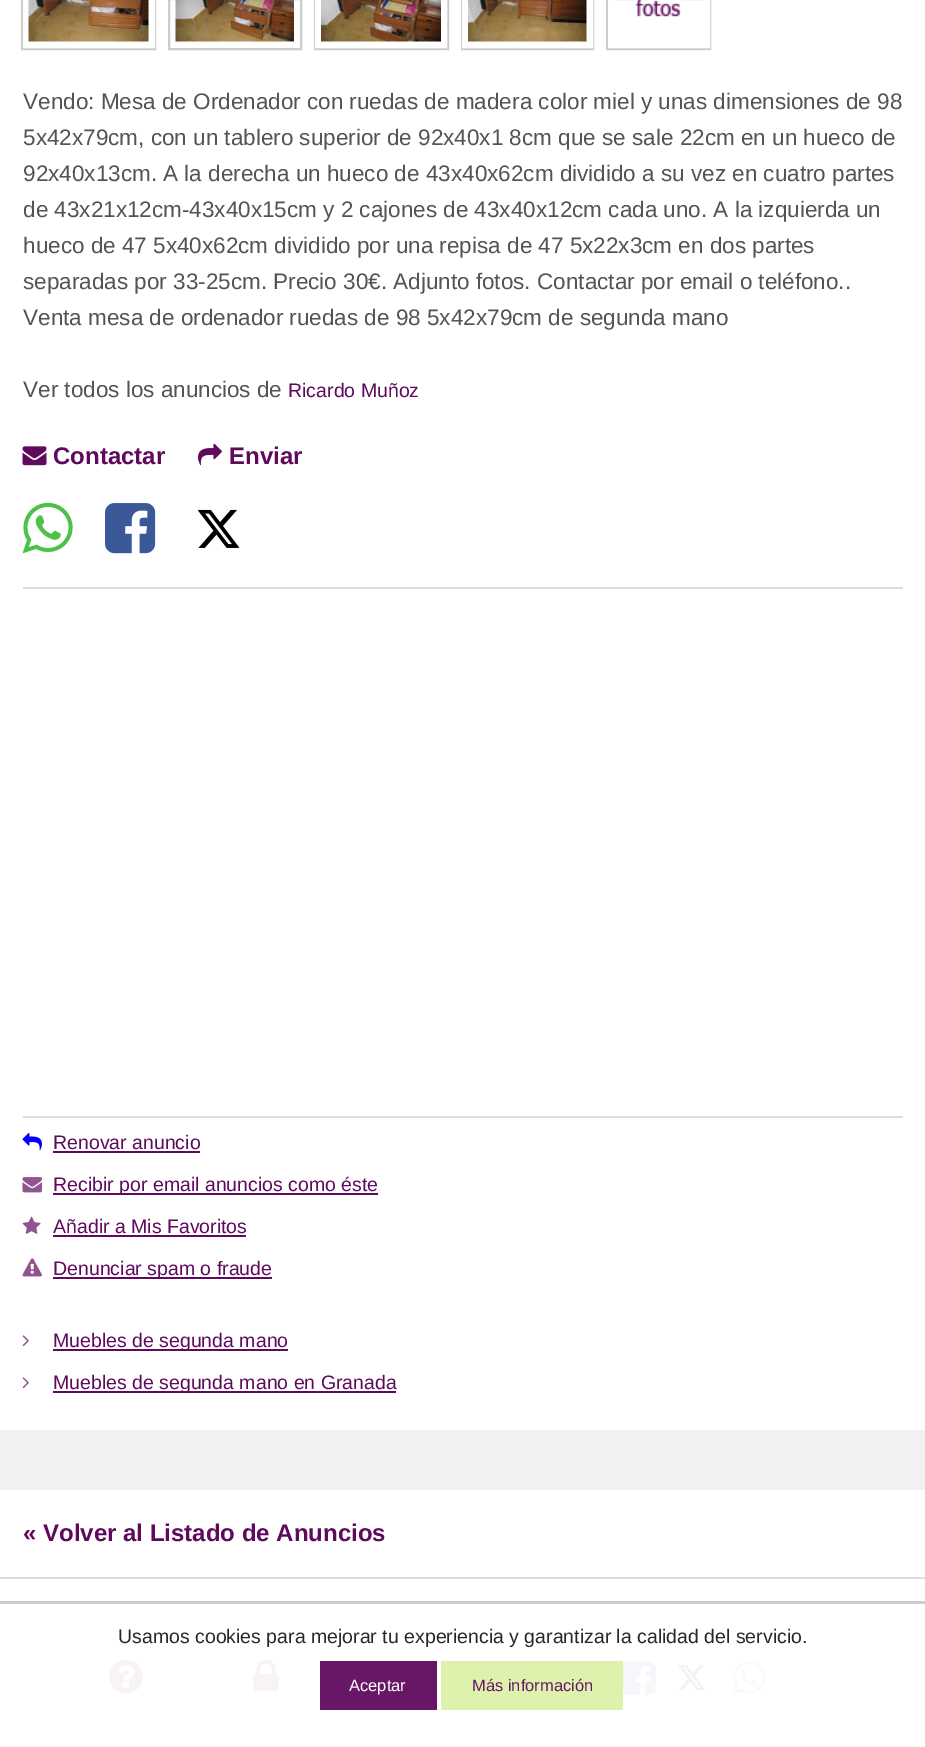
%!PS
<< /PageSize [925 1747] /PageUsesTransparency true >> setpagedevice
/rgb { 3 { 255 div 3 1 roll } repeat setrgbcolor } def
/font { [ exch dup neg 0 0 3 -1 roll 0 0 ] selectfont } def
/alpha { dup .setfillconstantalpha .setstrokeconstantalpha } def
/picture { 5 dict begin { /h /w /y /x /name } { exch def } forall
  gsave x y translate w h scale
  w h 8 [w 0 0 h 0 0] name (r) file false 3 colorimage grestore end } def
0 .pushpdf14devicefilter
0 1747 translate 1 -1 scale
4 setmiterlimit
255 255 255 rgb
0 0 925 1747 rectfill
204 204 204 rgb
2 setlinewidth
22 -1 133 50 rectstroke
255 255 255 rgb
6 setlinewidth
26 -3 126 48 rectstroke
(img/1.rgb) 28 0 121 42 picture
204 204 204 rgb
2 setlinewidth
169 -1 132 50 rectstroke
(img/2.rgb) 175 0 119 42 picture
315 -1 133 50 rectstroke
255 255 255 rgb
6 setlinewidth
318 -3 126 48 rectstroke
(img/3.rgb) 321 0 120 42 picture
204 204 204 rgb
2 setlinewidth
462 -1 131 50 rectstroke
255 255 255 rgb
6 setlinewidth
465 -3 125 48 rectstroke
(img/4.rgb) 468 0 119 42 picture
204 204 204 rgb
2 setlinewidth
607 -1 103 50 rectstroke
255 255 255 rgb
6 setlinewidth
611 -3 96 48 rectstroke
(img/5.rgb) 635 0 47 17 picture
(img/6.rgb) 22 446 25 20 picture
(img/7.rgb) 198 443 24 23 picture
(img/8.rgb) 22 502 51 52 picture
(img/9.rgb) 105 503 51 51 picture
(img/10.rgb) 198 509 41 39 picture
221 221 221 rgb
23 587 880 2 rectfill
23 1116 880 2 rectfill
(img/11.rgb) 22 1133 20 18 picture
96 10 94 rgb
53 1151 147 2 rectfill
(img/12.rgb) 22 1177 20 16 picture
53 1193 325 2 rectfill
(img/13.rgb) 22 1216 19 18 picture
53 1235 193 2 rectfill
(img/14.rgb) 22 1258 20 19 picture
53 1277 219 2 rectfill
(img/15.rgb) 22 1335 7 12 picture
53 1349 235 2 rectfill
(img/15.rgb) 22 1377 7 12 picture
[
  [53 1391 343 2 96 10 94]
  [0 1430 925 60 242 242 242]
  [0 1577 925 2 221 221 221]
] { aload pop rgb rectfill } forall
(img/16.rgb) 109 1659 34 35 picture
(img/17.rgb) 253 1659 26 32 picture
(img/18.rgb) 622 1661 34 34 picture
(img/19.rgb) 678 1664 27 27 picture
(img/20.rgb) 732 1661 34 34 picture
[
  [0 1601 925 1 201 201 201]
  [0 1602 925 2 207 207 207]
] { aload pop rgb rectfill } forall
0.95 alpha
[
  [320 1661 117 49 96 10 94]
] { aload pop rgb rectfill } forall
0.66 alpha
[
  [441 1661 182 49 205 236 132]
] { aload pop rgb rectfill } forall
/LiberationSans-Regular 22.5 font
1 alpha
84 84 84 rgb
[
  [(Vendo: Mesa de Ordenador con ruedas de madera color miel y unas dimensiones de 98) 23 109]
  [(5x42x79cm, con un tablero superior de 92x40x1 8cm que se sale 22cm en un hueco de) 23 145]
  [(92x40x13cm. A la derecha un hueco de 43x40x62cm dividido a su vez en cuatro partes) 23 181]
  [(de 43x21x12cm-43x40x15cm y 2 cajones de 43x40x12cm cada uno. A la izquierda un) 23 217]
  [(hueco de 47 5x40x62cm dividido por una repisa de 47 5x22x3cm en dos partes) 23 253]
  [(separadas por 33-25cm. Precio 30€. Adjunto fotos. Contactar por email o teléfono..) 23 289]
  [(Venta mesa de ordenador ruedas de 98 5x42x79cm de segunda mano) 23 325]
  [(Ver todos los anuncios de) 23 397]
] { aload pop moveto show } forall
/LiberationSans-Regular 19.5 font
96 10 94 rgb
288 397 moveto (Ricardo Muñoz) show
/LiberationSans-Bold 24 font
53 464 moveto (Contactar) show
229 464 moveto (Enviar) show
/LiberationSans-Regular 19.5 font
[
  [(Renovar anuncio) 53 1149]
  [(Recibir por email anuncios como éste) 53 1191]
  [(Añadir a Mis Favoritos) 53 1233]
  [(Denunciar spam o fraude) 53 1275]
  [(Muebles de segunda mano) 53 1347]
  [(Muebles de segunda mano en Granada) 53 1389]
] { aload pop moveto show } forall
/LiberationSans-Bold 24 font
23 1541 moveto (« Volver al Listado de Anuncios) show
/LiberationSans-Regular 19.5 font
40 40 40 rgb
118 1643 moveto (Usamos cookies para mejorar tu experiencia y garantizar la calidad del servicio.) show
/LiberationSans-Regular 16.5 font
255 255 255 rgb
349 1691 moveto (Aceptar) show
104 22 102 rgb
472 1691 moveto (Más información) show
.poppdf14devicefilter showpage
